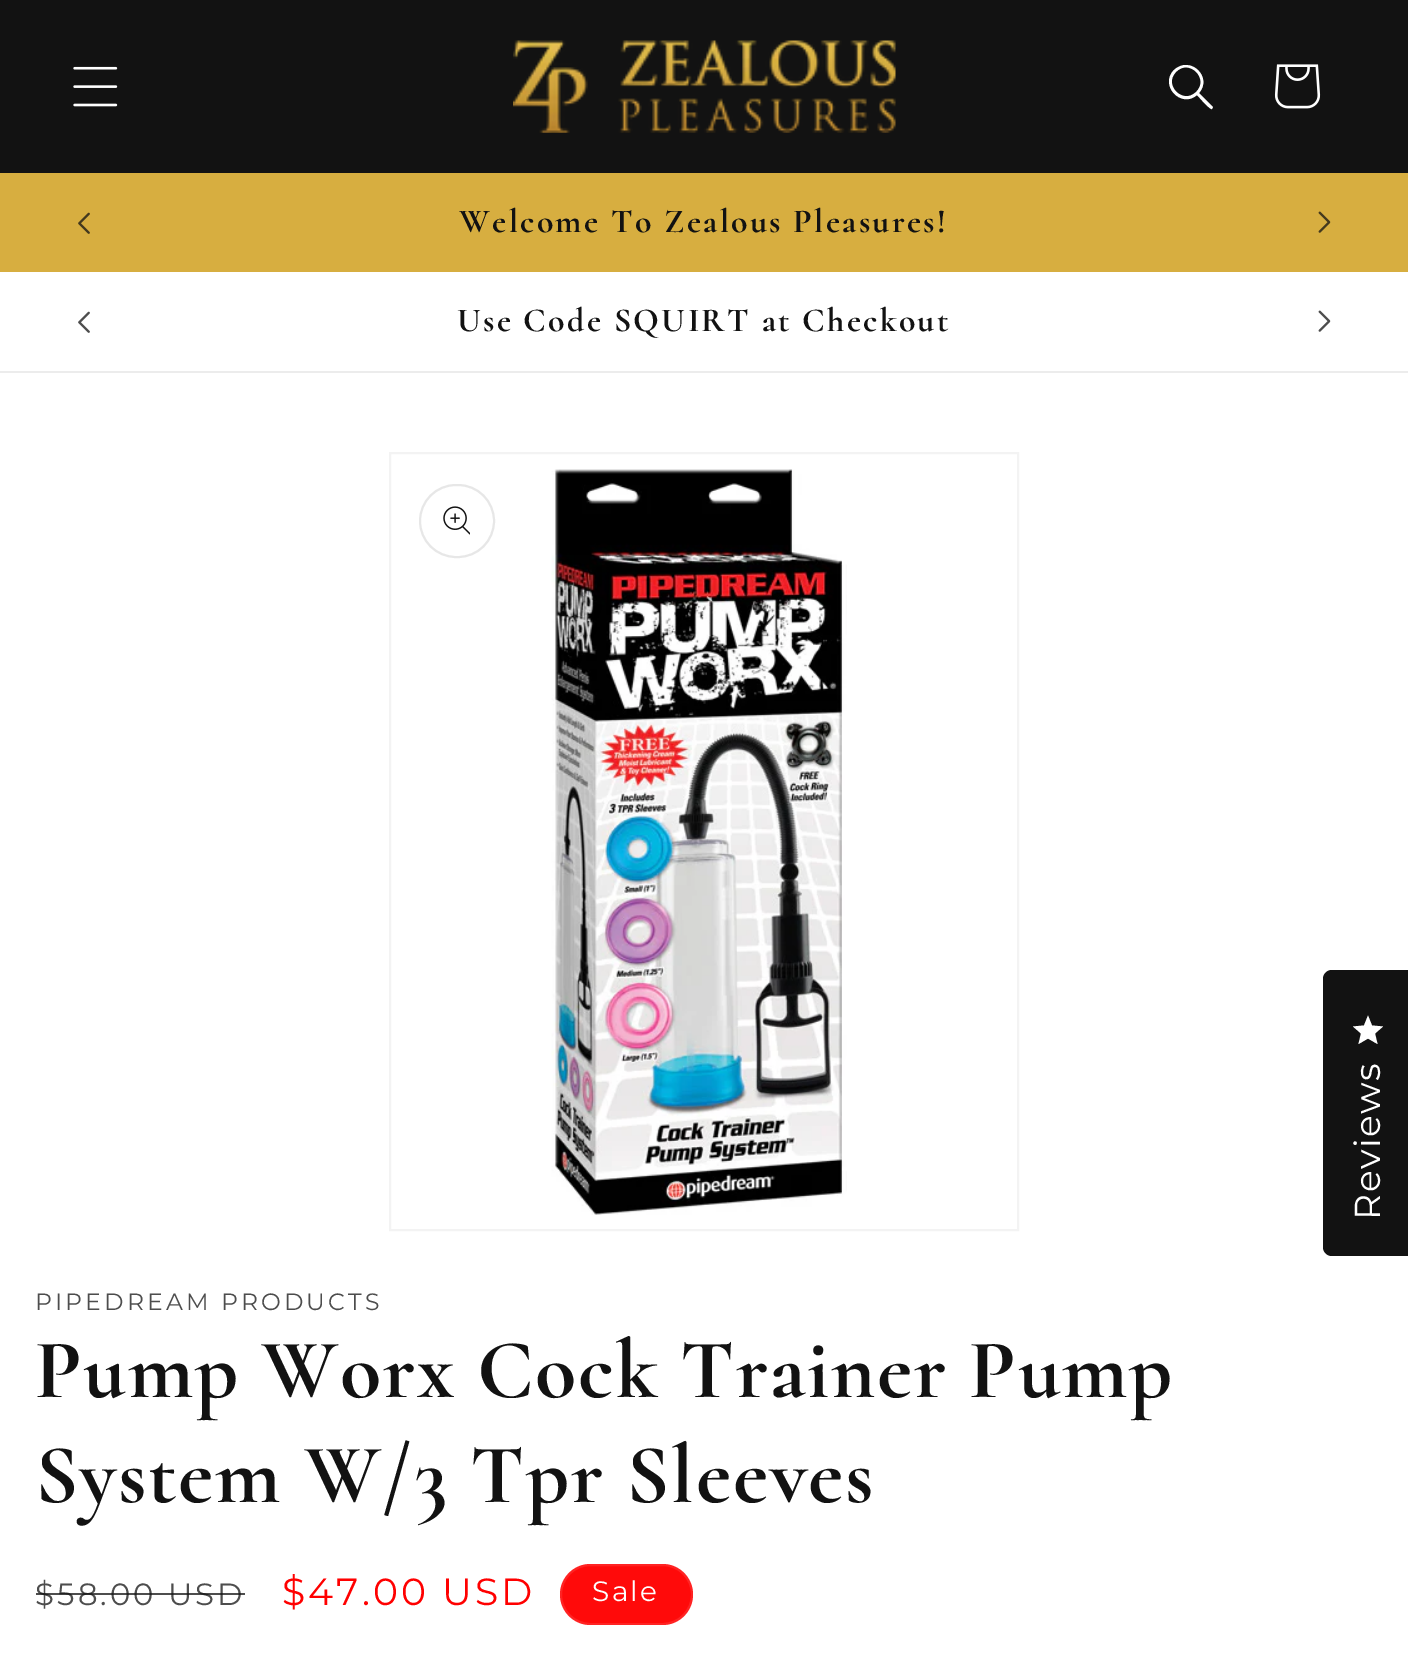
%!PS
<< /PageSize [1408 1673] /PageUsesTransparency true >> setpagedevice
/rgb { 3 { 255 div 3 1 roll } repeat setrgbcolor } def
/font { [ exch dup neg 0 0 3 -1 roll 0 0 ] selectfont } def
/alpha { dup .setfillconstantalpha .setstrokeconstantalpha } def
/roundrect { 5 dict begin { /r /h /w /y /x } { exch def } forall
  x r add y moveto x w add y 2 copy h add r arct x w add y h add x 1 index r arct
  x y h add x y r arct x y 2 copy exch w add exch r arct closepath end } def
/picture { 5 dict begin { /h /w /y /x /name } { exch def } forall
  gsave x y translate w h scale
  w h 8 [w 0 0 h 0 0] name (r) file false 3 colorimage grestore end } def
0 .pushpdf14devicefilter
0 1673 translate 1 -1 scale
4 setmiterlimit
255 255 255 rgb
0 0 1408 1673 rectfill
18 18 18 rgb
0 0 1408 173 rectfill
(img/1.rgb) 73 66 45 41 picture
(img/2.rgb) 513 40 383 93 picture
255 255 255 rgb
1196 92 moveto 1183 105 1163 85 1176 72 curveto 1189 58 1210 79 1196 92 curveto closepath 1197 95 moveto 1181 109 1159 85 1174 70 curveto 1190 55 1213 77 1199 93 curveto 1213 107 lineto 1212 109 lineto 1210 110 1199 97 1197 95 curveto closepath eofill
(img/3.rgb) 1274 64 47 45 picture
215 174 64 rgb
0 173 1408 99 rectfill
(img/4.rgb) 78 212 12 22 picture
(img/5.rgb) 1318 211 13 22 picture
236 236 236 rgb
0 371 1408 2 rectfill
(img/6.rgb) 78 311 12 22 picture
(img/7.rgb) 1318 310 13 22 picture
18 18 18 rgb
1332 970 moveto 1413 970 lineto 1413 1256 lineto 1332 1256 lineto 1327 1256 1323 1252 1323 1247 curveto 1323 979 lineto 1323 974 1327 970 1332 970 curveto closepath fill
255 255 255 rgb
1368 1038.5 moveto 1377.5 1044 lineto 1375 1033.5 lineto 1383 1026.5 lineto 1372 1025.5 lineto 1368 1015.5 lineto 1364 1025.5 lineto 1353 1026.5 lineto 1361 1033.5 lineto 1358.5 1044 lineto closepath fill
243 243 243 rgb
2 setlinewidth
390 453 628 777 rectstroke
231 231 231 rgb
420 485 74 72 36 roundrect stroke
(img/8.rgb) 443 506 27 29 picture
(img/9.rgb) 551 469 296 746 picture
255 10 10 rgb
560 1564 133 61 30.5 roundrect fill
0.1 alpha
255 255 255 rgb
561 1565 131 59 29.5 roundrect stroke
/Cormorant-Bold 33.75 font
1 alpha
18 18 18 rgb
459 232 moveto 2.35 0 (Welcome To Zealous Pleasures!) ashow
457 331 moveto 2.35 0 (Use Code SQUIRT at Checkout) ashow
/Montserrat-Regular 36 font
255 255 255 rgb
gsave 1380 1220 translate -89.9 rotate 0 0 moveto 1.5 0 (Reviews) ashow grestore
/Montserrat-Regular 23.6 font
77 77 77 rgb
35 1310 moveto 3.1 0 (PIPEDREAM PRODUCTS) ashow
/Cormorant-Bold 84.4 font
18 18 18 rgb
35 1397 moveto 1.7 0 (Pump Worx Cock Trainer Pump) ashow
35 1502 moveto 1.7 0 (System W/3 Tpr Sleeves) ashow
/Montserrat-Regular 30.75 font
77 77 77 rgb
35 1605 moveto 3.1 0 ($58.00 USD) ashow
0.75 alpha
18 18 18 rgb
36 1593 209 2 rectfill
/Montserrat-Regular 37.75 font
1 alpha
255 0 0 rgb
282 1605 moveto 3.1 0 ($47.00 USD) ashow
/Montserrat-Regular 28 font
255 255 255 rgb
592 1601 moveto 2.35 0 (Sale) ashow
.poppdf14devicefilter showpage
